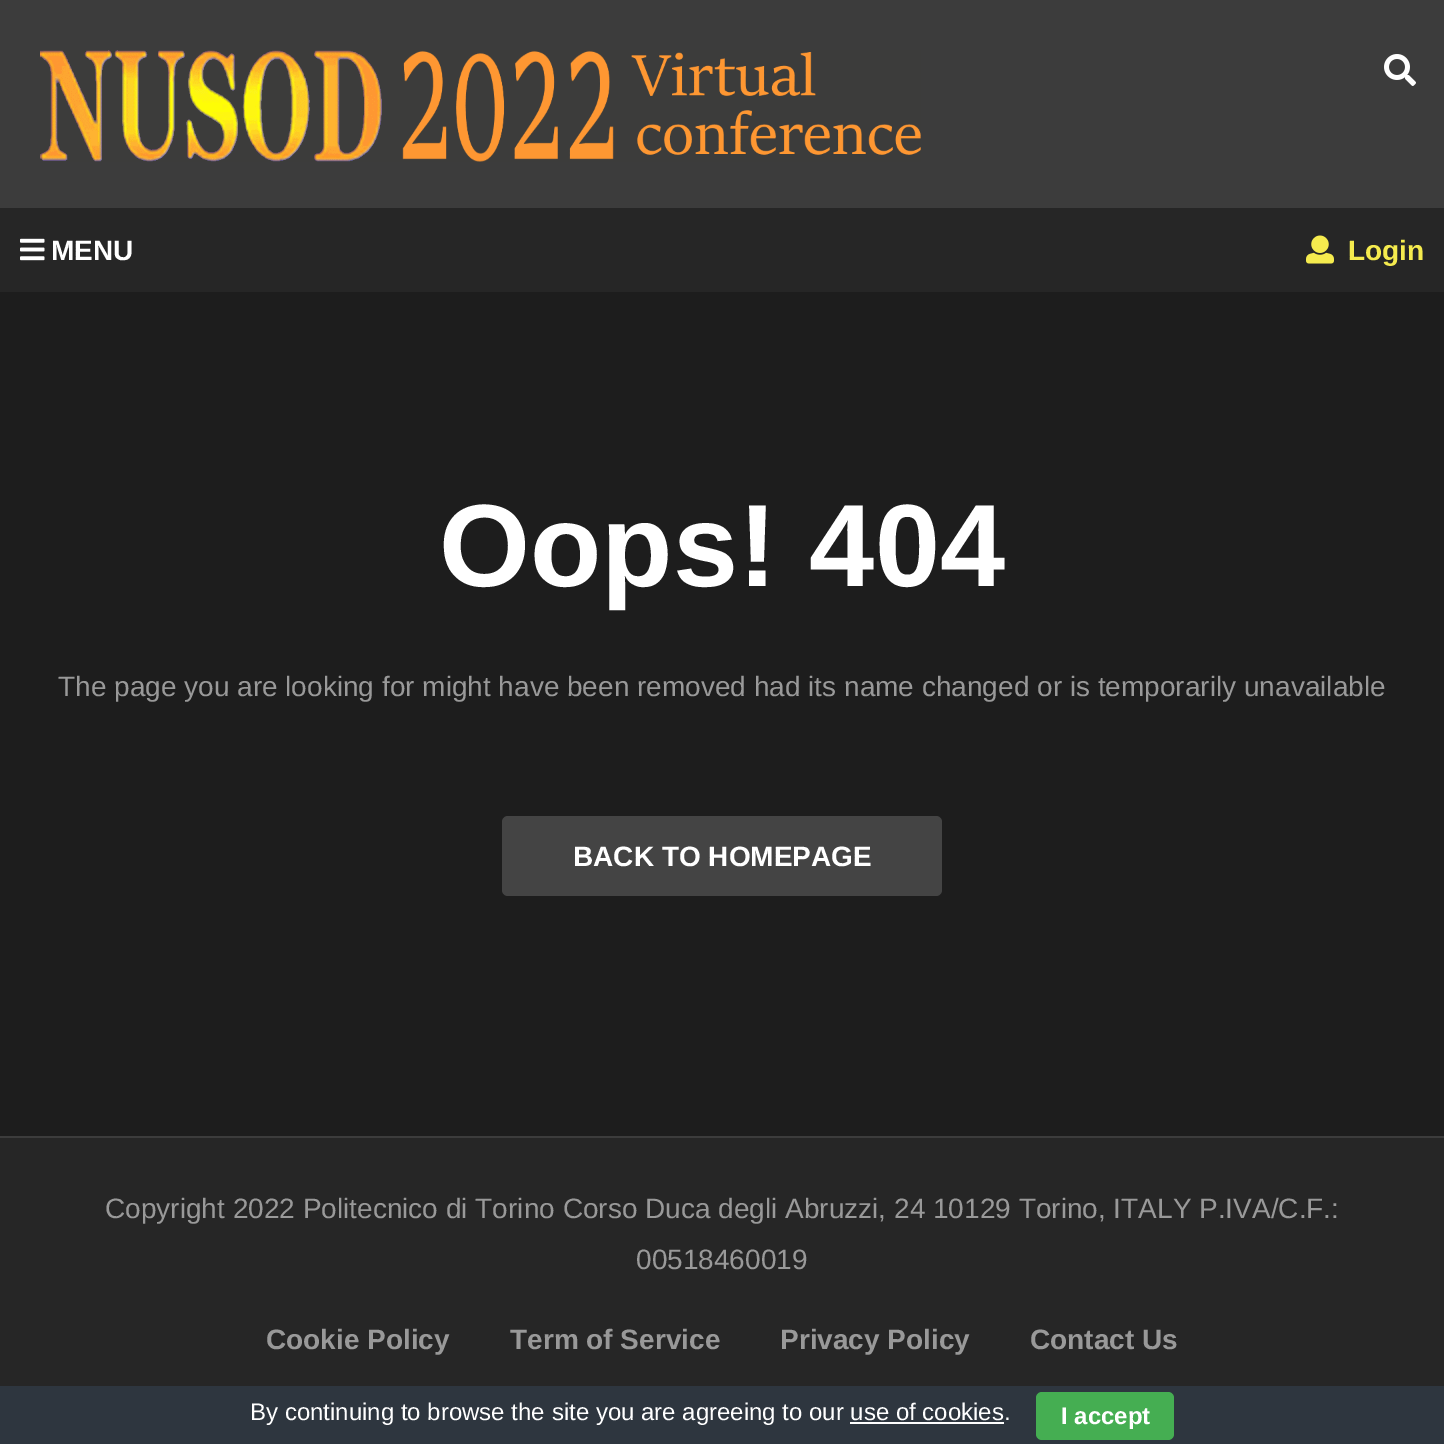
%!PS
<< /PageSize [1444 1444] >> setpagedevice
/rgb { 3 { 255 div 3 1 roll } repeat setrgbcolor } def
/font { [ exch dup neg 0 0 3 -1 roll 0 0 ] selectfont } def
/roundrect { 5 dict begin { /r /h /w /y /x } { exch def } forall
  x r add y moveto x w add y 2 copy h add r arct x w add y h add x 1 index r arct
  x y h add x y r arct x y 2 copy exch w add exch r arct closepath end } def
/picture { 5 dict begin { /h /w /y /x /name } { exch def } forall
  gsave x y translate w h scale
  w h 8 [w 0 0 h 0 0] name (r) file false 3 colorimage grestore end } def
0 1444 translate 1 -1 scale
4 setmiterlimit
29 29 29 rgb
0 0 1444 1444 rectfill
60 60 60 rgb
0 0 1444 208 rectfill
(img/1.rgb) 40 50 881 112 picture
(img/2.rgb) 1384 54 32 32 picture
38 38 38 rgb
0 208 1444 84 rectfill
(img/3.rgb) 20 238 25 23 picture
(img/4.rgb) 1306 235 28 29 picture
68 68 68 rgb
502 816 440 80 6 roundrect fill
[
  [0 1138 1444 248 38 38 38]
  [0 1136 1444 2 60 60 60]
  [0 1386 1444 58 46 54 63]
] { aload pop rgb rectfill } forall
69 174 82 rgb
1036 1392 138 48 6 roundrect fill
255 255 255 rgb
850 1422 154 2 rectfill
/LiberationSans-Bold 28 font
51 260 moveto (MENU) show
245 235 78 rgb
1348 260 moveto (Login) show
/LiberationSans-Bold 117 font
255 255 255 rgb
439 586 moveto (Oops! 404) show
/LiberationSans-Regular 28 font
153 153 153 rgb
58 696 moveto (The page you are looking for might have been removed had its name changed or is temporarily unavailable) show
/LiberationSans-Bold 28 font
255 255 255 rgb
573 866 moveto (BACK TO HOMEPAGE) show
/LiberationSans-Regular 28 font
153 153 153 rgb
105 1218 moveto (Copyright 2022 Politecnico di Torino Corso Duca degli Abruzzi, 24 10129 Torino, ITALY P.IVA/C.F.:) show
636 1269 moveto (00518460019) show
/LiberationSans-Bold 28 font
[
  [(Cookie Policy) 266 1349]
  [(Term of Service) 510 1349]
  [(Privacy Policy) 780 1349]
  [(Contact Us) 1030 1349]
] { aload pop moveto show } forall
/LiberationSans-Regular 24 font
255 255 255 rgb
250 1420 moveto (By continuing to browse the site you are agreeing to our use of cookies.) show
/LiberationSans-Bold 24 font
1061 1424 moveto (I accept) show
showpage
